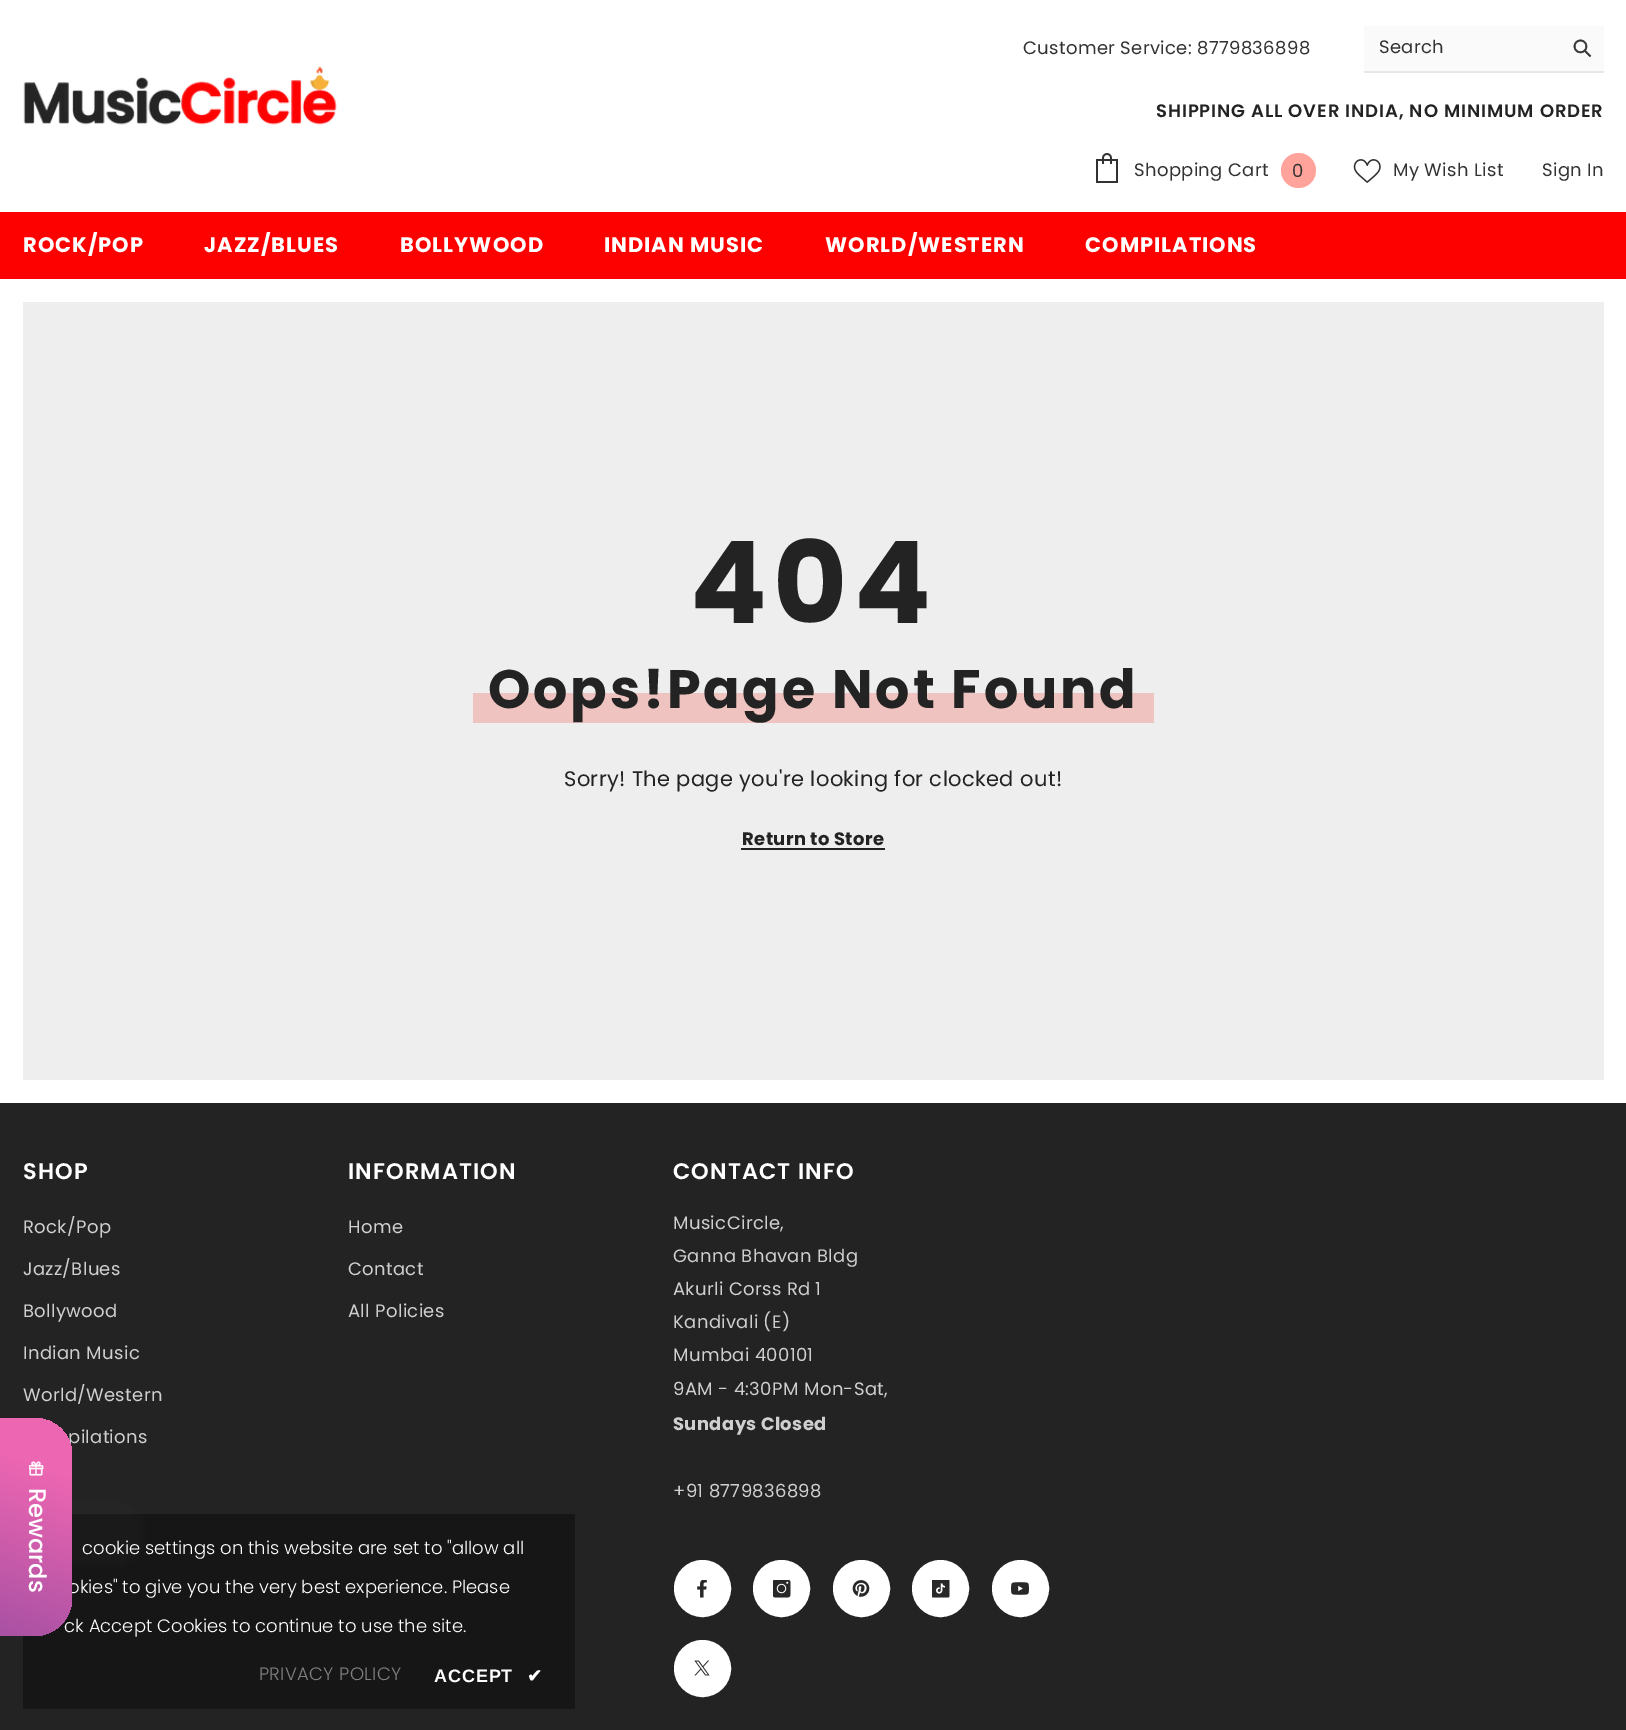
%!PS
<< /PageSize [1626 1730] /PageUsesTransparency true >> setpagedevice
/rgb { 3 { 255 div 3 1 roll } repeat setrgbcolor } def
/font { [ exch dup neg 0 0 3 -1 roll 0 0 ] selectfont } def
/alpha { dup .setfillconstantalpha .setstrokeconstantalpha } def
/circle { newpath 0 360 arc closepath } def
/roundrect { 5 dict begin { /r /h /w /y /x } { exch def } forall
  x r add y moveto x w add y 2 copy h add r arct x w add y h add x 1 index r arct
  x y h add x y r arct x y 2 copy exch w add exch r arct closepath end } def
/shadow { 12 dict begin { /a /b /q /h /w /y /x } { exch def } forall gsave /was 0 def
  9 -2 -9 { dup b mul 4 div /e exch def 1 sub .425 mul 2.718 exch exp 1 add a .99 .min exch div /now exch def
    1 1 now sub 1 was sub div sub alpha /was now def
    w h .min e 2 mul add 0 gt { x e sub y e sub w e 2 mul add h e 2 mul add
      q e add b .6 mul add w h .min 2 div e add .min 0 .max roundrect fill } if } for grestore end } def
/picture { 5 dict begin { /h /w /y /x /name } { exch def } forall
  gsave x y translate w h scale
  w h 8 [w 0 0 h 0 0] name (r) file false 3 colorimage grestore end } def
0 .pushpdf14devicefilter
0 1730 translate 1 -1 scale
4 setmiterlimit
255 255 255 rgb
0 0 1626 1730 rectfill
250 250 250 rgb
1364 26 240 45 rectfill
231 231 231 rgb
1364 71 240 2 rectfill
(img/1.rgb) 1573 39 19 19 picture
(img/2.rgb) 23 66 314 59 picture
(img/3.rgb) 1096 153 22 30 picture
255 163 155 rgb
1298.5 170.5 17.5 circle fill
(img/4.rgb) 1353 159 28 24 picture
[
  [0 212 1626 67 253 1 1]
  [23 302 1581 778 238 238 238]
  [473 693 681 30 239 195 192]
  [741 848 144 2 35 35 35]
  [0 1103 1626 627 35 35 35]
] { aload pop rgb rectfill } forall
255 255 255 rgb
702.5 1588.5 27.5 circle gsave fill grestore
2 setlinewidth
stroke
(img/5.rgb) 697 1580 10 18 picture
781.5 1588.5 27.5 circle gsave fill grestore
stroke
(img/6.rgb) 773 1580 18 18 picture
861.5 1588.5 27.5 circle gsave fill grestore
stroke
(img/7.rgb) 852 1580 18 17 picture
940.5 1588.5 27.5 circle gsave fill grestore
stroke
(img/8.rgb) 932 1580 18 18 picture
1020.5 1588.5 27.5 circle gsave fill grestore
stroke
(img/9.rgb) 1011 1582 18 13 picture
702.5 1668.5 27.5 circle gsave fill grestore
stroke
(img/10.rgb) 694 1660 16 16 picture
22 22 22 rgb
23 1514 552 195 rectfill
68 68 68 rgb
-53 1500 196 66 35 6 0.08 shadow
/Poppins-Regular 18 font
50 50 50 rgb
1023 54 moveto 0.35 0 (Customer Service: 8779836898) ashow
1379 53 moveto 0.35 0 (Search) ashow
/Poppins-SemiBold 18 font
35 35 35 rgb
1156 117 moveto 0.9 0 (SHIPPING ALL OVER INDIA, NO MINIMUM ORDER) ashow
/Poppins-Regular 18 font
50 50 50 rgb
1134 176 moveto 0.35 0 (Shopping Cart) ashow
1292 177 moveto (0) show
1393 176 moveto 0.35 0 (My Wish List) ashow
1542 176 moveto 0.35 0 (Sign In) ashow
/Poppins-Bold 21 font
255 255 255 rgb
23 252 moveto 1 0 (ROCK/POP) ashow
204 252 moveto 1 0 (JAZZ/BLUES) ashow
400 252 moveto 1 0 (BOLLYWOOD) ashow
604 252 moveto 1 0 (INDIAN MUSIC) ashow
825 252 moveto 1 0 (WORLD/WESTERN) ashow
1085 252 moveto 1 0 (COMPILATIONS) ashow
/Poppins-Bold 114 font
35 35 35 rgb
690 623 moveto 6 0 (404) ashow
/Poppins-Bold 54 font
488 708 moveto 2.75 0 (Oops!Page Not Found) ashow
/Poppins-Regular 21 font
564 786 moveto 0.35 0 (Sorry! The page you're looking for clocked out!) ashow
/Poppins-Bold 18 font
742 845 moveto 0.35 0 (Return to Store) ashow
/Poppins-SemiBold 22.5 font
255 255 255 rgb
23 1179 moveto 1.1 0 (SHOP) ashow
/Poppins-Regular 18 font
207 207 207 rgb
23 1233 moveto 0.35 0 (Rock/Pop) ashow
23 1275 moveto 0.35 0 (Jazz/Blues) ashow
23 1317 moveto 0.35 0 (Bollywood) ashow
23 1359 moveto 0.35 0 (Indian Music) ashow
23 1401 moveto 0.35 0 (World/Western) ashow
68 1443 moveto 0.35 0 (pilations) ashow
/Poppins-SemiBold 22.5 font
255 255 255 rgb
348 1179 moveto 1.1 0 (INFORMATION) ashow
/Poppins-Regular 18 font
207 207 207 rgb
348 1233 moveto 0.35 0 (Home) ashow
348 1275 moveto 0.35 0 (Contact) ashow
348 1317 moveto 0.35 0 (All Policies) ashow
/Poppins-SemiBold 22.5 font
255 255 255 rgb
673 1179 moveto 1.1 0 (CONTACT INFO) ashow
/Poppins-Regular 18 font
207 207 207 rgb
673 1229 moveto 0.35 0 (MusicCircle,) ashow
673 1262 moveto 0.35 0 (Ganna Bhavan Bldg) ashow
673 1295 moveto 0.35 0 (Akurli Corss Rd 1) ashow
673 1328 moveto 0.35 0 (Kandivali \(E\)) ashow
673 1361 moveto 0.35 0 (Mumbai 400101) ashow
673 1395 moveto 0.35 0 (9AM - 4:30PM Mon-Sat,) ashow
/Poppins-Bold 18 font
673 1430 moveto 0.35 0 (Sundays Closed) ashow
/Poppins-Regular 18 font
673 1497 moveto 0.35 0 (+91 8779836898) ashow
/Poppins-Light 18 font
255 255 255 rgb
[
  [(cookie settings on this website are set to "allow all) 82 1554]
  [(okies" to give you the very best experience. Please) 68 1593]
  [(ck Accept Cookies to continue to use the site.) 64 1632]
] { aload pop moveto show } forall
gsave 72 1455 moveto 72 1598 lineto 72 1619 55 1636 34 1636 curveto 0 1636 lineto 0 1418 lineto 34 1418 lineto 55 1418 72 1434 72 1455 curveto closepath clip newpath
<< /ShadingType 2 /ColorSpace /DeviceRGB /Coords [74 1418 -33 1722] /Extend [true true] /Function << /FunctionType 3 /Domain [0 1] /Functions [<< /FunctionType 2 /Domain [0 1] /C0 [0.929 0.4 0.698] /C1 [0.929 0.4 0.698] /N 1 >> << /FunctionType 2 /Domain [0 1] /C0 [0.929 0.4 0.698] /C1 [0.525 0.275 0.612] /N 1 >>] /Bounds [0.17] /Encode [0 1 0 1] >> >> shfill grestore
(img/11.rgb) 29 1461 15 15 picture
/Poppins-Medium 24 font
gsave 29 1488 translate 90 rotate 0 0 moveto (Rewards) show grestore
/Poppins-Light 18 font
129 129 129 rgb
259 1680 moveto 0.35 0 (PRIVACY POLICY) ashow
/LiberationSans-Bold 18 font
255 255 255 rgb
434 1682 moveto 0.9 0 (ACCEPT) ashow
/DejaVuSans-Bold 18 font
527 1682 moveto 0.9 0 (✔) ashow
.poppdf14devicefilter showpage
